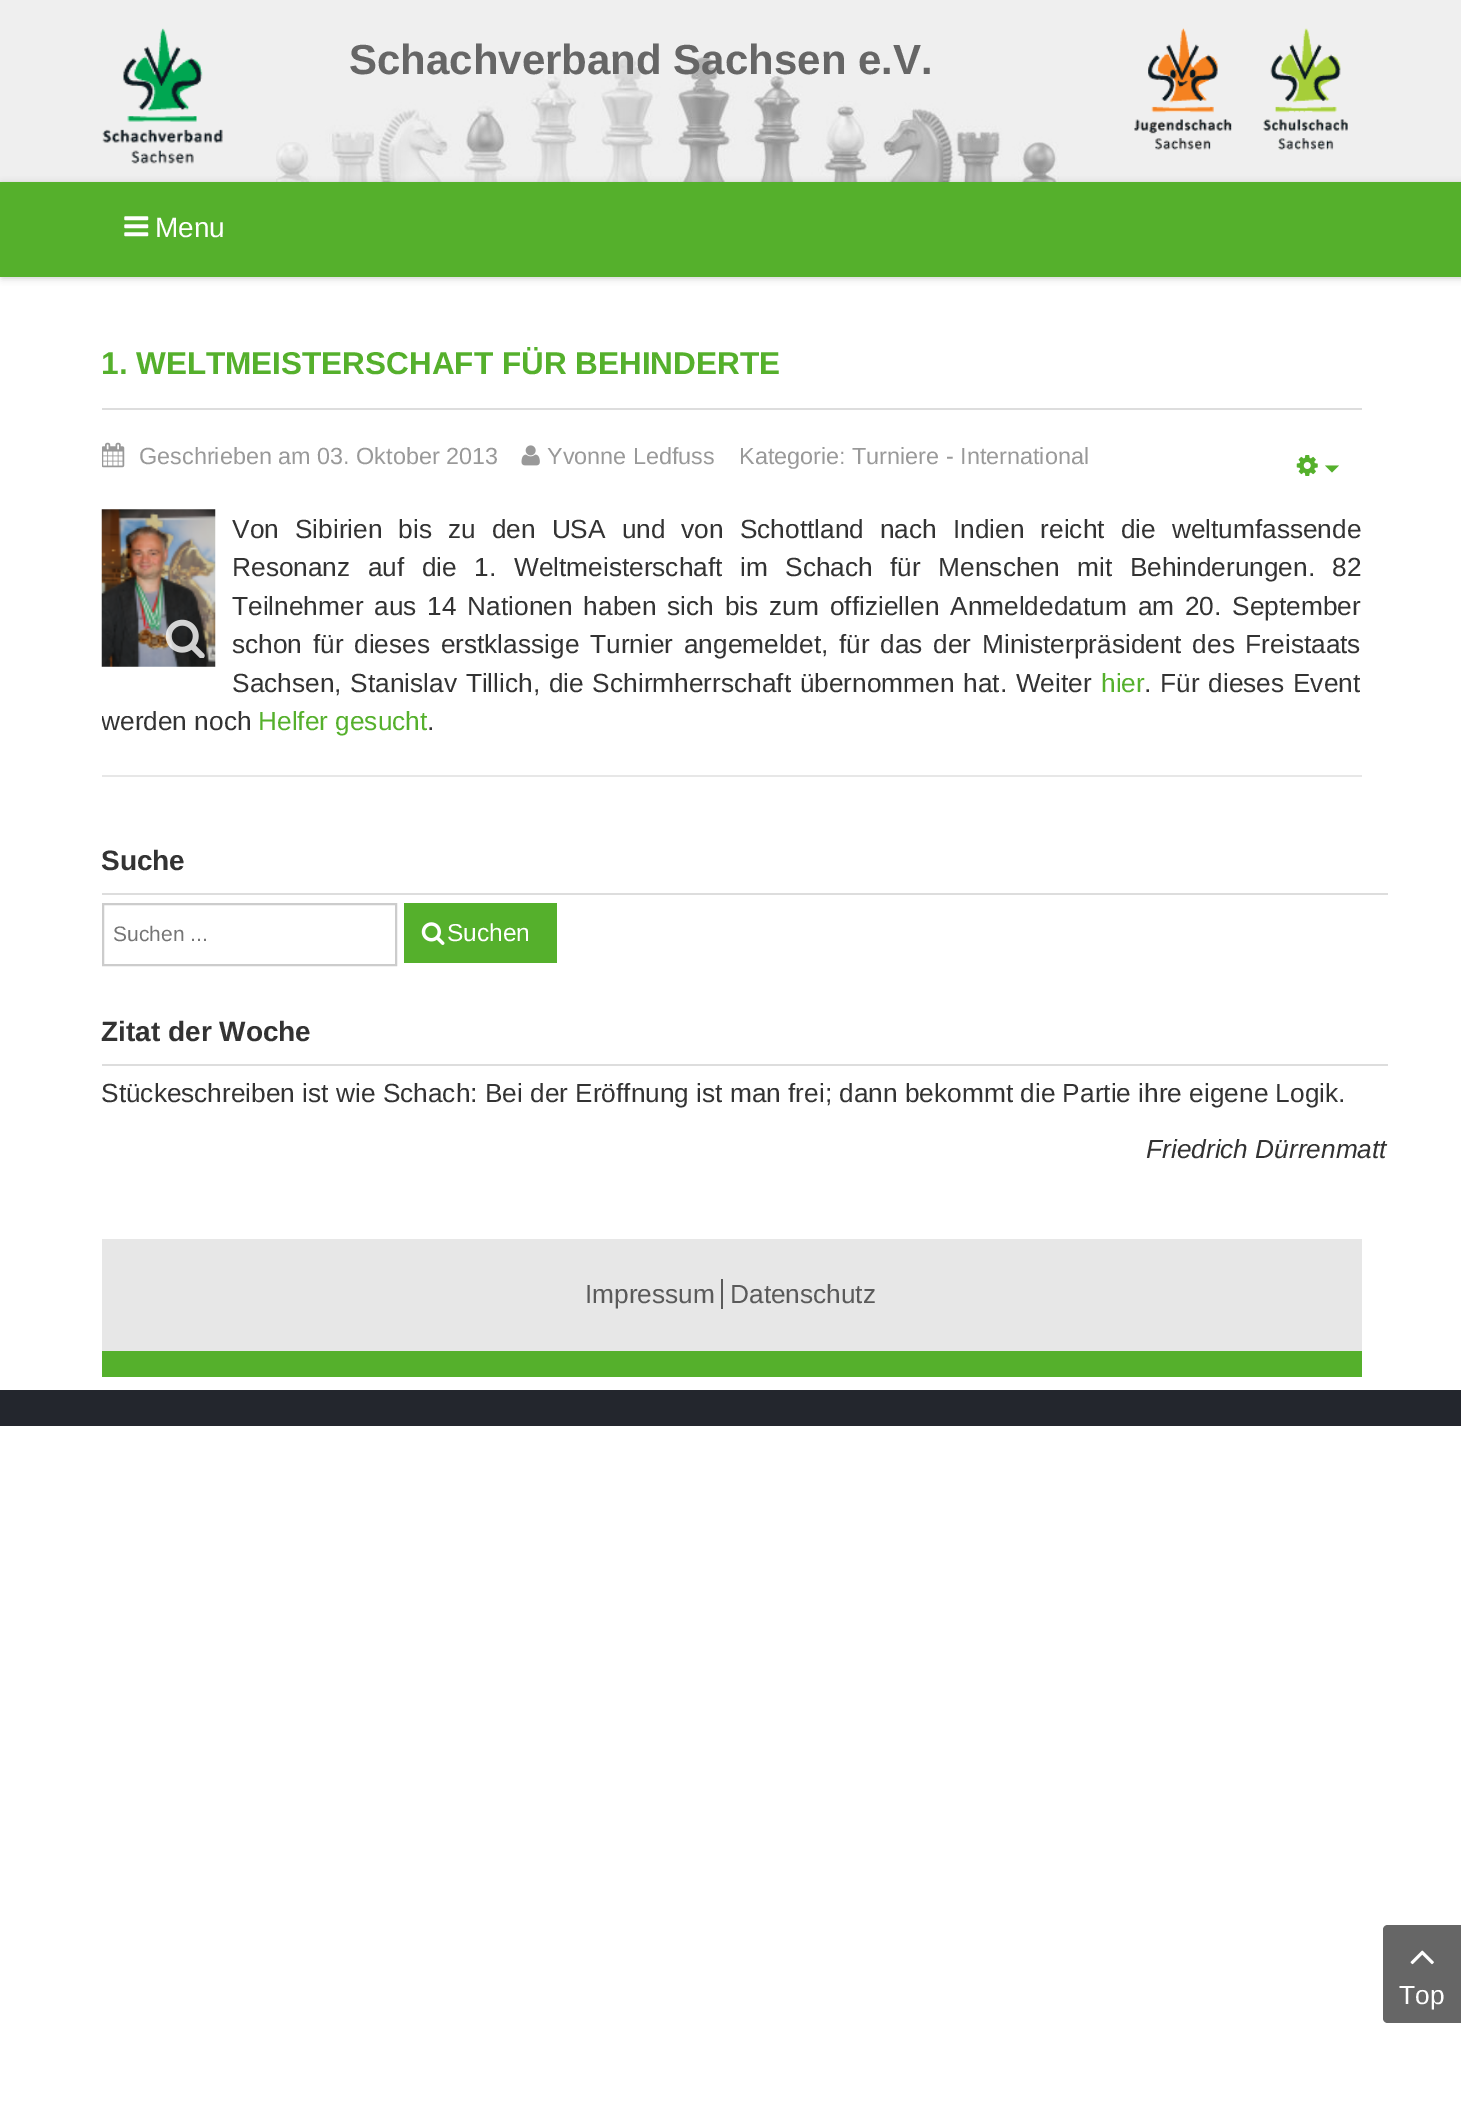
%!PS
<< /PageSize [1461 2109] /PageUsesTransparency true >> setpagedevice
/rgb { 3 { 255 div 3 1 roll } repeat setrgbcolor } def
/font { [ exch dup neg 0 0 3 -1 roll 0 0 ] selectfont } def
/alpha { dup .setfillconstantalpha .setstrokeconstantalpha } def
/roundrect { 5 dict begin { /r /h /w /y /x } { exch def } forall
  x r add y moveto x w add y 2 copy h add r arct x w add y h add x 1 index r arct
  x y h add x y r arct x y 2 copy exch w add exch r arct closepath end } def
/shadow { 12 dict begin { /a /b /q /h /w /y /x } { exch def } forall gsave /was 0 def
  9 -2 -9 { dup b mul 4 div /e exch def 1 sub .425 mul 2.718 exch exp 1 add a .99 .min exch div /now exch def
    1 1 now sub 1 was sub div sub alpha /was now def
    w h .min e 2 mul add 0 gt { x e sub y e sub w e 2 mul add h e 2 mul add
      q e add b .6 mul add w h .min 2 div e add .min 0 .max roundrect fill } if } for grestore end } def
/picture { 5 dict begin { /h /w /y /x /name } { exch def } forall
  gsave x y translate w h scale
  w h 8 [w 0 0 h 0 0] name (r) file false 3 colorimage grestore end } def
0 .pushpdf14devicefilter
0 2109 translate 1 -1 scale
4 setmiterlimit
255 255 255 rgb
0 0 1461 2109 rectfill
239 239 239 rgb
0 0 1461 182 rectfill
(img/1.rgb) 102 28 121 136 picture
(img/2.rgb) 276 56 783 126 picture
(img/3.rgb) 1134 28 98 122 picture
(img/4.rgb) 1263 28 85 122 picture
0 0 0 rgb
2 184 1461 94 0 3.5 0.2 shadow
85 176 44 rgb
0 182 1461 95 rectfill
(img/5.rgb) 124 216 25 21 picture
221 221 221 rgb
102 408 1260 2 rectfill
(img/6.rgb) 102 442 23 26 picture
(img/7.rgb) 521 445 19 21 picture
(img/8.rgb) 1296 455 22 21 picture
85 176 44 rgb
1325 465.5 moveto 1339 465.5 lineto 1332 472.5 lineto closepath fill
231 231 231 rgb
102 775 1260 2 rectfill
(img/9.rgb) 101 509 115 158 picture
(img/10.rgb) 165 619 40 39 picture
221 221 221 rgb
102 893 1286 2 rectfill
204 204 204 rgb
2 setlinewidth
103 904 293 61 rectstroke
85 176 44 rgb
404 903 153 60 rectfill
(img/11.rgb) 421 922 24 23 picture
[
  [102 1064 1286 2 221 221 221]
  [102 1239 1260 112 231 231 231]
  [721 1279 2 30 90 90 90]
  [102 1351 1260 26 85 176 44]
  [0 1390 1461 36 35 38 45]
] { aload pop rgb rectfill } forall
102 102 102 rgb
1388 1925 moveto 1461 1925 lineto 1461 2023 lineto 1388 2023 lineto 1385 2023 1383 2021 1383 2018 curveto 1383 1930 lineto 1383 1927 1385 1925 1388 1925 curveto closepath fill
(img/12.rgb) 1410 1950 24 15 picture
/LiberationSans-Bold 42 font
349 74 moveto (Schachverband Sachsen e.V.) show
/LiberationSans-Regular 28 font
255 255 255 rgb
155 237 moveto (Menu) show
/LiberationSans-Bold 31.5 font
85 176 44 rgb
101 374 moveto (1. WELTMEISTERSCHAFT FÜR BEHINDERTE) show
/LiberationSans-Regular 23.4 font
153 153 153 rgb
[
  [(Geschrieben am 03. Oktober 2013) 139 464]
  [(Yvonne Ledfuss) 547 464]
  [(Kategorie: Turniere - International) 739 464]
] { aload pop moveto show } forall
/LiberationSans-Regular 26.25 font
51 51 51 rgb
232 538 moveto 8.75 0 32 (Von Sibirien bis zu den USA und von Schottland nach Indien reicht die weltumfassende) widthshow
232 576 moveto 10.25 0 32 (Resonanz auf die 1. Weltmeisterschaft im Schach für Menschen mit Behinderungen. 82) widthshow
232 615 moveto 3.6 0 32 (Teilnehmer aus 14 Nationen haben sich bis zum offiziellen Anmeldedatum am 20. September) widthshow
232 653 moveto 3.4 0 32 (schon für dieses erstklassige Turnier angemeldet, für das der Ministerpräsident des Freistaats) widthshow
232 692 moveto 1.5 0 32 (Sachsen, Stanislav Tillich, die Schirmherrschaft übernommen hat. Weiter) widthshow
85 176 44 rgb
1101 692 moveto (hier) show
51 51 51 rgb
1144 692 moveto 1.5 0 32 (. Für dieses Event) widthshow
gsave
102 347 1260 430 rectclip
101 730 moveto (werden noch) show
grestore
85 176 44 rgb
258 730 moveto (Helfer gesucht) show
51 51 51 rgb
427 730 moveto (.) show
/LiberationSans-Bold 28 font
101 870 moveto (Suche) show
/LiberationSans-Regular 21 font
117 117 117 rgb
113 941 moveto (Suchen ...) show
/LiberationSans-Regular 24.5 font
255 255 255 rgb
447 941 moveto (Suchen) show
/LiberationSans-Bold 28 font
51 51 51 rgb
101 1041 moveto (Zitat der Woche) show
/LiberationSans-Regular 26.25 font
101 1102 moveto (Stückeschreiben ist wie Schach: Bei der Eröffnung ist man frei; dann bekommt die Partie ihre eigene Logik.) show
/LiberationSans-Italic 26.25 font
1146 1158 moveto (Friedrich Dürrenmatt) show
/LiberationSans-Regular 26.25 font
90 90 90 rgb
585 1303 moveto (Impressum) show
730 1303 moveto (Datenschutz) show
255 255 255 rgb
1399 2004 moveto (Top) show
.poppdf14devicefilter showpage
